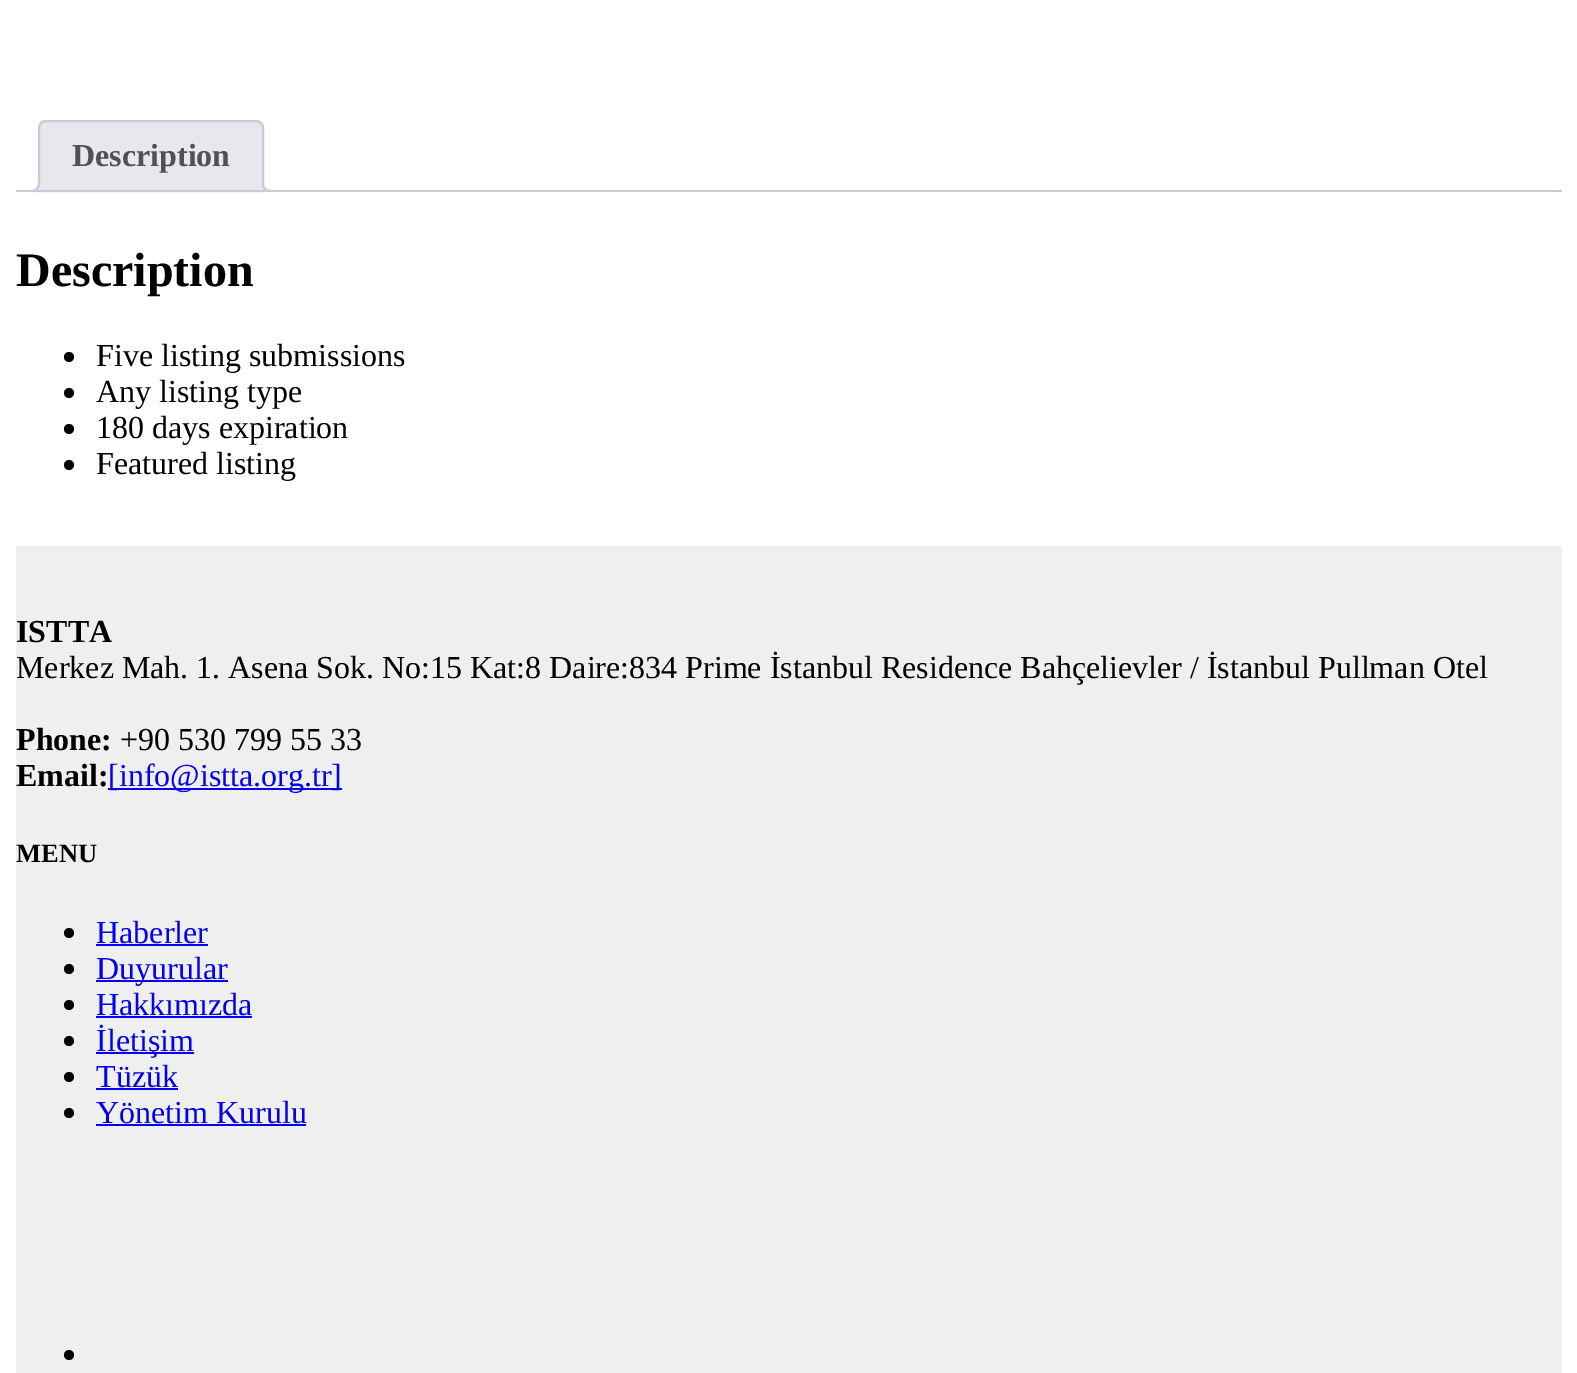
%!PS
<< /PageSize [1577 1373] >> setpagedevice
/rgb { 3 { 255 div 3 1 roll } repeat setrgbcolor } def
/font { [ exch dup neg 0 0 3 -1 roll 0 0 ] selectfont } def
/circle { newpath 0 360 arc closepath } def
0 1373 translate 1 -1 scale
4 setmiterlimit
255 255 255 rgb
0 0 1577 1373 rectfill
233 230 237 rgb
46 121 moveto 256 121 lineto 260 121 263 124 263 128 curveto 263 191 lineto 39 191 lineto 39 128 lineto 39 124 42 121 46 121 curveto closepath gsave fill grestore
207 200 216 rgb
2 setlinewidth
stroke
gsave
16 120 1546 72 rectclip
233 230 237 rgb
34 191.5 moveto 34 196 lineto 41 196 44 193 44 186 curveto 39.5 186 lineto 39 189 37 191 34 191.5 curveto closepath fill
grestore
30 182 moveto 40 182 lineto 40 189 37 192 30 192 curveto closepath 30 182 moveto 38 182 lineto 38 188 36 190 30 190 curveto closepath eofill
gsave
16 120 1546 72 rectclip
233 230 237 rgb
258 186 moveto 258 193 261 196 268 196 curveto 268 191.5 lineto 265 191 263 189 262.5 186 curveto closepath fill
grestore
262 182 moveto 272 182 lineto 272 192 lineto 267 192 262 190 262 184 curveto closepath 264 182 moveto 272 182 lineto 272 190 lineto 268 190 264 189 264 184 curveto closepath eofill
16 190 1546 2 rectfill
0 0 0 rgb
69 357 5 circle fill
69 393 5 circle fill
69 429 5 circle fill
69 465 5 circle fill
239 239 239 rgb
16 546 1546 827 rectfill
0 0 238 rgb
108 788 234 2 rectfill
0 0 0 rgb
69 933 5 circle fill
0 0 238 rgb
96 944 112 2 rectfill
0 0 0 rgb
69 969 5 circle fill
0 0 238 rgb
96 980 132 2 rectfill
0 0 0 rgb
69 1005 5 circle fill
0 0 238 rgb
96 1016 156 2 rectfill
0 0 0 rgb
69 1041 5 circle fill
0 0 238 rgb
96 1052 98 2 rectfill
0 0 0 rgb
69 1077 5 circle fill
0 0 238 rgb
96 1088 82 2 rectfill
0 0 0 rgb
69 1113 5 circle fill
0 0 238 rgb
96 1124 210 2 rectfill
0 0 0 rgb
69 1355 5 circle fill
/LiberationSerif-Bold 32 font
81 81 81 rgb
72 166 moveto (Description) show
/LiberationSerif-Bold 48 font
0 0 0 rgb
16 286 moveto (Description) show
/LiberationSerif-Regular 32 font
[
  [(Five listing submissions) 96 366]
  [(Any listing type) 96 402]
  [(180 days expiration) 96 438]
  [(Featured listing) 96 474]
] { aload pop moveto show } forall
/LiberationSerif-Bold 32 font
16 642 moveto (ISTTA) show
/LiberationSerif-Regular 32 font
16 678 moveto (Merkez Mah. 1. Asena Sok. No:15 Kat:8 Daire:834 Prime İstanbul Residence Bahçelievler / İstanbul Pullman Otel) show
/LiberationSerif-Bold 32 font
16 750 moveto (Phone:) show
/LiberationSerif-Regular 32 font
120 750 moveto (+90 530 799 55 33) show
/LiberationSerif-Bold 32 font
16 786 moveto (Email:) show
/LiberationSerif-Regular 32 font
0 0 238 rgb
108 786 moveto ([info@istta.org.tr]) show
/LiberationSerif-Bold 26.5 font
0 0 0 rgb
16 862 moveto (MENU) show
/LiberationSerif-Regular 32 font
0 0 238 rgb
[
  [(Haberler) 96 943]
  [(Duyurular) 96 979]
  [(Hakkımızda) 96 1015]
  [(İletişim) 96 1051]
  [(Tüzük) 96 1087]
  [(Yönetim Kurulu) 96 1123]
] { aload pop moveto show } forall
showpage
